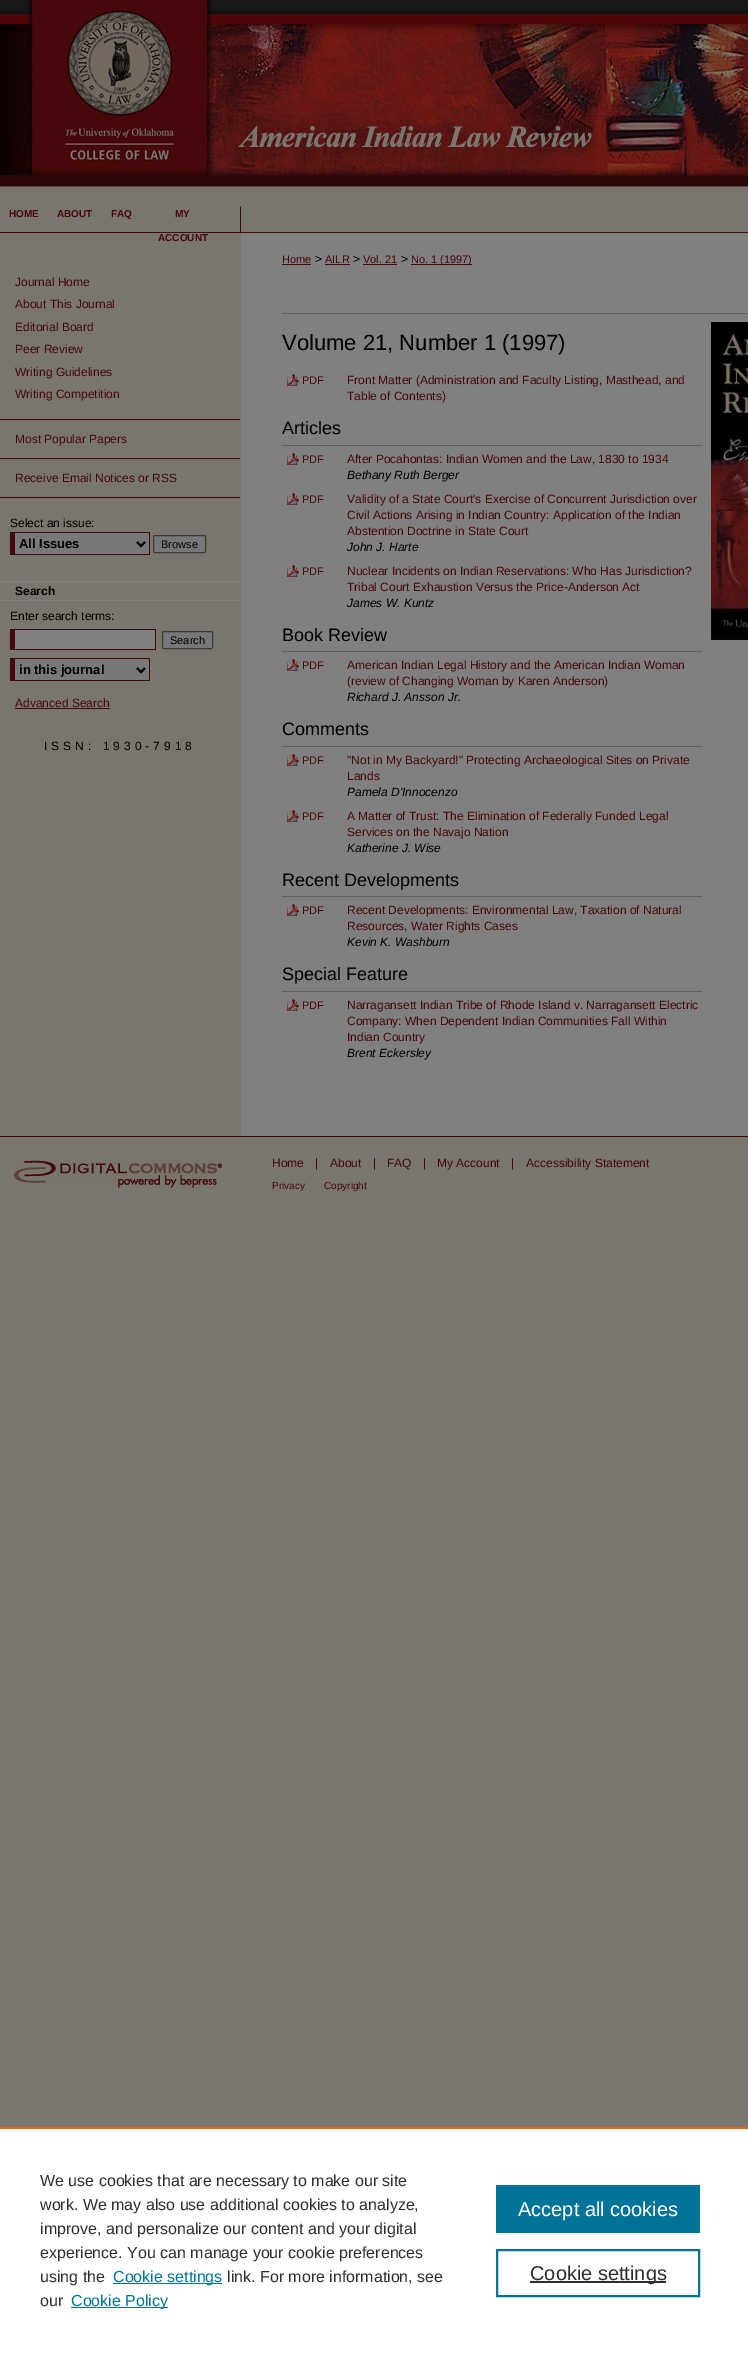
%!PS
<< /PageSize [748 2353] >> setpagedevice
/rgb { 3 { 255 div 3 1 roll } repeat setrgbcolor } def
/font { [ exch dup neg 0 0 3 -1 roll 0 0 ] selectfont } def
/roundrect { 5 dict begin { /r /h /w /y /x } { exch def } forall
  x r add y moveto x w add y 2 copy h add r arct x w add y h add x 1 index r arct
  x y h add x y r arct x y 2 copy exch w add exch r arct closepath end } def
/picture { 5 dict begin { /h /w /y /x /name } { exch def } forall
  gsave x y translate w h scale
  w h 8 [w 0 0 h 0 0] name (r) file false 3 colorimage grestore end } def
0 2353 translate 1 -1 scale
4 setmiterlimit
121 118 109 rgb
0 0 748 2353 rectfill
(img/1.rgb) 0 0 240 189 picture
(img/2.rgb) 240 0 508 189 picture
(img/3.rgb) 240 206 1 26 picture
[
  [0 232 748 1 70 8 10]
  [241 233 507 903 128 128 128]
  [0 419 240 1 70 8 10]
  [0 458 240 1 70 8 10]
  [0 497 240 1 70 8 10]
  [15 533 134 21 120 120 120]
  [10 532 140 1 70 8 10]
  [149 532 1 23 70 8 10]
  [10 554 140 1 70 8 10]
  [10 532 5 23 70 8 10]
] { aload pop rgb rectfill } forall
0 0 0 rgb
2 setlinewidth
137 542 moveto 141 546 lineto 145 542 lineto stroke
120 120 120 rgb
153.5 535.5 52 17 1.5 roundrect gsave fill grestore
59 59 59 rgb
1 setlinewidth
stroke
[
  [0 581 240 1 128 128 128]
  [0 600 240 1 128 128 128]
  [15 630 140 19 128 128 128]
  [10 629 146 1 70 8 10]
  [155 629 1 21 70 8 10]
  [10 649 146 1 70 8 10]
  [10 629 5 21 70 8 10]
] { aload pop rgb rectfill } forall
120 120 120 rgb
162.5 631.5 50 17 1.5 roundrect gsave fill grestore
59 59 59 rgb
stroke
[
  [15 659 134 21 120 120 120]
  [10 658 140 1 70 8 10]
  [149 658 1 23 70 8 10]
  [10 680 140 1 70 8 10]
  [10 658 5 23 70 8 10]
] { aload pop rgb rectfill } forall
0 0 0 rgb
2 setlinewidth
137 668 moveto 141 672 lineto 145 668 lineto stroke
[
  [15 708 95 1 70 8 10]
  [282 264 29 1 70 8 10]
  [325 264 25 1 70 8 10]
  [363 264 34 1 70 8 10]
  [411 264 61 1 70 8 10]
  [282 313 466 1 96 96 96]
] { aload pop rgb rectfill } forall
(img/4.rgb) 287 374 12 12 picture
282 445 420 1 rectfill
(img/4.rgb) 287 453 12 12 picture
(img/4.rgb) 287 493 12 12 picture
(img/4.rgb) 287 565 12 12 picture
282 651 420 1 rectfill
(img/4.rgb) 287 659 12 12 picture
282 746 420 1 rectfill
(img/4.rgb) 287 754 12 12 picture
(img/4.rgb) 287 810 12 12 picture
282 896 420 1 rectfill
(img/4.rgb) 287 904 12 12 picture
282 991 420 1 rectfill
(img/4.rgb) 287 999 12 12 picture
(img/5.rgb) 711 322 37 318 picture
70 8 10 rgb
0 1136 748 1 rectfill
(img/6.rgb) 14 1160 208 28 picture
[
  [0 2129 748 224 255 255 255]
  [0 2127 748 2 235 101 0]
  [113 2283 109 1 0 115 152]
  [71 2307 97 1 0 115 152]
  [496 2185 204 48 0 115 152]
] { aload pop rgb rectfill } forall
497 2250 202 46 rectstroke
46 46 46 rgb
530 2281 136 2 rectfill
/LiberationSans-Bold 10 font
70 8 10 rgb
[
  [(HOME) 9 217]
  [(ABOUT) 57 217]
  [(FAQ) 111 217]
  [(MY) 175 217]
  [(ACCOUNT) 158 241]
] { aload pop moveto show } forall
/LiberationSans-Regular 12 font
[
  [(Journal Home) 15 286]
  [(About This Journal) 15 308]
  [(Editorial Board) 15 331]
  [(Peer Review) 15 353]
  [(Writing Guidelines) 15 376]
  [(Writing Competition) 15 398]
  [(Most Popular Papers) 15 443]
  [(Receive Email Notices or RSS) 15 482]
] { aload pop moveto show } forall
0 0 0 rgb
10 527 moveto (Select an issue:) show
/LiberationSans-Bold 13 font
19 548 moveto (All Issues) show
/LiberationSans-Regular 11 font
161 548 moveto (Browse) show
/LiberationSans-Bold 12 font
15 595 moveto (Search) show
/LiberationSans-Regular 12 font
10 620 moveto (Enter search terms:) show
/LiberationSans-Regular 11 font
170 644 moveto (Search) show
/LiberationSans-Bold 13 font
19 674 moveto (in this journal) show
/LiberationSans-Regular 12 font
70 8 10 rgb
15 707 moveto (Advanced Search) show
0 0 0 rgb
44 750 moveto 4 0 (ISSN: 1930-7918) ashow
/LiberationSans-Regular 11 font
70 8 10 rgb
282 263 moveto (Home) show
/LiberationSans-Regular 12 font
0 0 0 rgb
315 263 moveto (>) show
/LiberationSans-Regular 11 font
70 8 10 rgb
325 263 moveto (AILR) show
/LiberationSans-Regular 12 font
0 0 0 rgb
353 263 moveto (>) show
/LiberationSans-Regular 11 font
70 8 10 rgb
363 263 moveto (Vol. 21) show
/LiberationSans-Regular 12 font
0 0 0 rgb
401 263 moveto (>) show
/LiberationSans-Regular 11 font
70 8 10 rgb
411 263 moveto (No. 1 \(1997\)) show
/LiberationSans-Regular 22 font
0 0 0 rgb
282 350 moveto (Volume 21, Number 1 \(1997\)) show
/LiberationSans-Regular 11 font
70 8 10 rgb
302 384 moveto (PDF) show
/LiberationSans-Regular 12 font
347 384 moveto (Front Matter \(Administration and Faculty Listing, Masthead, and) show
347 400 moveto (Table of Contents\)) show
/LiberationSans-Regular 18 font
0 0 0 rgb
282 434 moveto (Articles) show
/LiberationSans-Regular 11 font
70 8 10 rgb
302 463 moveto (PDF) show
/LiberationSans-Regular 12 font
347 463 moveto (After Pocahontas: Indian Women and the Law, 1830 to 1934) show
/LiberationSans-Italic 12 font
0 0 0 rgb
347 479 moveto (Bethany Ruth Berger) show
/LiberationSans-Regular 11 font
70 8 10 rgb
302 503 moveto (PDF) show
/LiberationSans-Regular 12 font
[
  [(Validity of a State Court's Exercise of Concurrent Jurisdiction over) 347 503]
  [(Civil Actions Arising in Indian Country: Application of the Indian) 347 519]
  [(Abstention Doctrine in State Court) 347 535]
] { aload pop moveto show } forall
/LiberationSans-Italic 12 font
0 0 0 rgb
347 551 moveto (John J. Harte) show
/LiberationSans-Regular 11 font
70 8 10 rgb
302 575 moveto (PDF) show
/LiberationSans-Regular 12 font
347 575 moveto (Nuclear Incidents on Indian Reservations: Who Has Jurisdiction?) show
347 591 moveto (Tribal Court Exhaustion Versus the Price-Anderson Act) show
/LiberationSans-Italic 12 font
0 0 0 rgb
347 607 moveto (James W. Kuntz) show
/LiberationSans-Regular 18 font
282 641 moveto (Book Review) show
/LiberationSans-Regular 11 font
70 8 10 rgb
302 669 moveto (PDF) show
/LiberationSans-Regular 12 font
347 669 moveto (American Indian Legal History and the American Indian Woman) show
347 685 moveto (\(review of Changing Woman by Karen Anderson\)) show
/LiberationSans-Italic 12 font
0 0 0 rgb
347 701 moveto (Richard J. Ansson Jr.) show
/LiberationSans-Regular 18 font
282 735 moveto (Comments) show
/LiberationSans-Regular 11 font
70 8 10 rgb
302 764 moveto (PDF) show
/LiberationSans-Regular 12 font
347 764 moveto ("Not in My Backyard!" Protecting Archaeological Sites on Private) show
347 780 moveto (Lands) show
/LiberationSans-Italic 12 font
0 0 0 rgb
347 796 moveto (Pamela D'Innocenzo) show
/LiberationSans-Regular 11 font
70 8 10 rgb
302 820 moveto (PDF) show
/LiberationSans-Regular 12 font
347 820 moveto (A Matter of Trust: The Elimination of Federally Funded Legal) show
347 836 moveto (Services on the Navajo Nation) show
/LiberationSans-Italic 12 font
0 0 0 rgb
347 852 moveto (Katherine J. Wise) show
/LiberationSans-Regular 18 font
282 886 moveto (Recent Developments) show
/LiberationSans-Regular 11 font
70 8 10 rgb
302 914 moveto (PDF) show
/LiberationSans-Regular 12 font
347 914 moveto (Recent Developments: Environmental Law, Taxation of Natural) show
347 930 moveto (Resources, Water Rights Cases) show
/LiberationSans-Italic 12 font
0 0 0 rgb
347 946 moveto (Kevin K. Washburn) show
/LiberationSans-Regular 18 font
282 980 moveto (Special Feature) show
/LiberationSans-Regular 11 font
70 8 10 rgb
302 1009 moveto (PDF) show
/LiberationSans-Regular 12 font
[
  [(Narragansett Indian Tribe of Rhode Island v. Narragansett Electric) 347 1009]
  [(Company: When Dependent Indian Communities Fall Within) 347 1025]
  [(Indian Country) 347 1041]
] { aload pop moveto show } forall
/LiberationSans-Italic 12 font
0 0 0 rgb
347 1057 moveto (Brent Eckersley) show
/LiberationSans-Regular 12 font
70 8 10 rgb
[
  [(Home) 272 1167]
  [(|) 315 1167]
  [(About) 330 1167]
  [(|) 373 1167]
  [(FAQ) 387 1167]
  [(|) 423 1167]
  [(My Account) 437 1167]
  [(|) 511 1167]
  [(Accessibility Statement) 526 1167]
] { aload pop moveto show } forall
/LiberationSans-Regular 10 font
272 1189 moveto (Privacy) show
324 1189 moveto (Copyright) show
/LiberationSans-Regular 16 font
46 46 46 rgb
[
  [(We use cookies that are necessary to make our site) 40 2186]
  [(work. We may also use additional cookies to analyze,) 40 2210]
  [(improve, and personalize our content and your digital) 40 2234]
  [(experience. You can manage your cookie preferences) 40 2258]
  [(using the) 40 2282]
] { aload pop moveto show } forall
0 115 152 rgb
113 2282 moveto (Cookie settings) show
46 46 46 rgb
227 2282 moveto (link. For more information, see) show
40 2306 moveto (our) show
0 115 152 rgb
71 2306 moveto (Cookie Policy) show
/LiberationSans-Regular 20 font
255 255 255 rgb
518 2216 moveto (Accept all cookies) show
46 46 46 rgb
530 2280 moveto (Cookie settings) show
showpage
